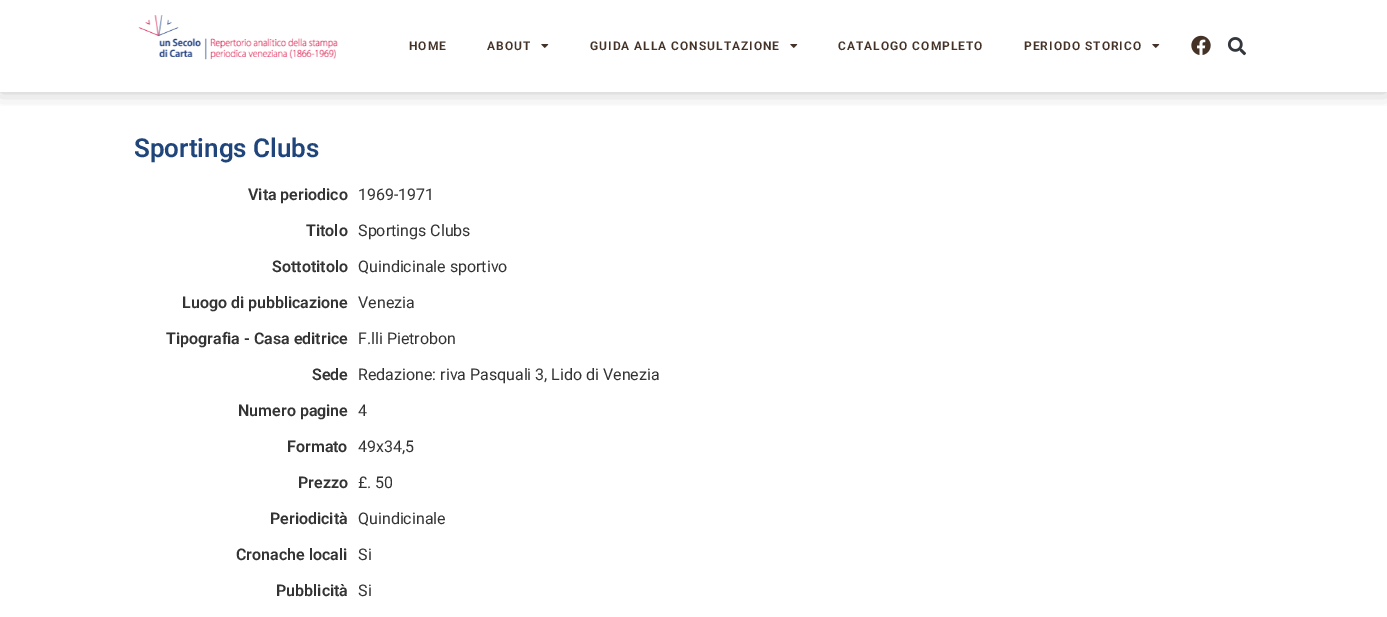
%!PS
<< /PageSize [1387 617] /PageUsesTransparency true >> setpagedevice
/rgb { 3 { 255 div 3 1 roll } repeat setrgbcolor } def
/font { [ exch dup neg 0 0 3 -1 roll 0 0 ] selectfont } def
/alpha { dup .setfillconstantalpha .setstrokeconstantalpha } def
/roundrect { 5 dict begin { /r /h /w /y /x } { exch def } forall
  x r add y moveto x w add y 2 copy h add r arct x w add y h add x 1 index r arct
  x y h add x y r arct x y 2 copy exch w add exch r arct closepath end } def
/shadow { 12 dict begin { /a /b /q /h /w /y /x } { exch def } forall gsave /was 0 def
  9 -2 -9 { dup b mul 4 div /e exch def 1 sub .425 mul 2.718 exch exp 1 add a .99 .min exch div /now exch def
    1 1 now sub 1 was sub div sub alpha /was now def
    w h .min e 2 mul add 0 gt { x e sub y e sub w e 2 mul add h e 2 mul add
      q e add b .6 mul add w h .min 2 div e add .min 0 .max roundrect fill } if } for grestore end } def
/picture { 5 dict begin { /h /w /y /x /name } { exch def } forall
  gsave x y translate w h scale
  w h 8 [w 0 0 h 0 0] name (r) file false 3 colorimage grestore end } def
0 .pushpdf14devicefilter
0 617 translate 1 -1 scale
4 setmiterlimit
255 255 255 rgb
0 0 1387 617 rectfill
gsave
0 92 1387 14 rectclip
0 0 0 rgb
0 0 1387 92 0 10 0.23 shadow
grestore
(img/1.rgb) 138 15 200 45 picture
(img/2.rgb) 541 44 8 4 picture
(img/2.rgb) 790 44 8 4 picture
(img/2.rgb) 1152 44 8 4 picture
(img/3.rgb) 1191 35 20 20 picture
(img/4.rgb) 1227 37 19 19 picture
/Roboto-SemiBold 12 font
68 50 39 rgb
409 50 moveto 1 0 (HOME) ashow
487 50 moveto 1 0 (ABOUT) ashow
590 50 moveto 1 0 (GUIDA ALLA CONSULTAZIONE) ashow
838 50 moveto 1 0 (CATALOGO COMPLETO) ashow
1024 50 moveto 1 0 (PERIODO STORICO) ashow
/Roboto-SemiBold 26 font
31 69 123 rgb
134 157 moveto (Sportings Clubs) show
/Roboto-SemiBold 16 font
51 51 51 rgb
248 200 moveto (Vita periodico) show
/Roboto-Regular 16 font
358 200 moveto (1969-1971) show
/Roboto-SemiBold 16 font
306 236 moveto (Titolo) show
/Roboto-Regular 16 font
358 236 moveto (Sportings Clubs) show
/Roboto-SemiBold 16 font
272 272 moveto (Sottotitolo) show
/Roboto-Regular 16 font
358 272 moveto (Quindicinale sportivo) show
/Roboto-SemiBold 16 font
182 308 moveto (Luogo di pubblicazione) show
/Roboto-Regular 16 font
358 308 moveto (Venezia) show
/Roboto-SemiBold 16 font
166 344 moveto (Tipografia - Casa editrice) show
/Roboto-Regular 16 font
358 344 moveto (F.lli Pietrobon) show
/Roboto-SemiBold 16 font
312 380 moveto (Sede) show
/Roboto-Regular 16 font
358 380 moveto (Redazione: riva Pasquali 3, Lido di Venezia) show
/Roboto-SemiBold 16 font
238 416 moveto (Numero pagine) show
/Roboto-Regular 16 font
358 416 moveto (4) show
/Roboto-SemiBold 16 font
287 452 moveto (Formato) show
/Roboto-Regular 16 font
358 452 moveto (49x34,5) show
/Roboto-SemiBold 16 font
298 488 moveto (Prezzo) show
/Roboto-Regular 16 font
358 488 moveto (£. 50) show
/Roboto-SemiBold 16 font
270 524 moveto (Periodicità) show
/Roboto-Regular 16 font
358 524 moveto (Quindicinale) show
/Roboto-SemiBold 16 font
236 560 moveto (Cronache locali) show
/Roboto-Regular 16 font
358 560 moveto (Si) show
/Roboto-SemiBold 16 font
276 596 moveto (Pubblicità) show
/Roboto-Regular 16 font
358 596 moveto (Si) show
.poppdf14devicefilter showpage
